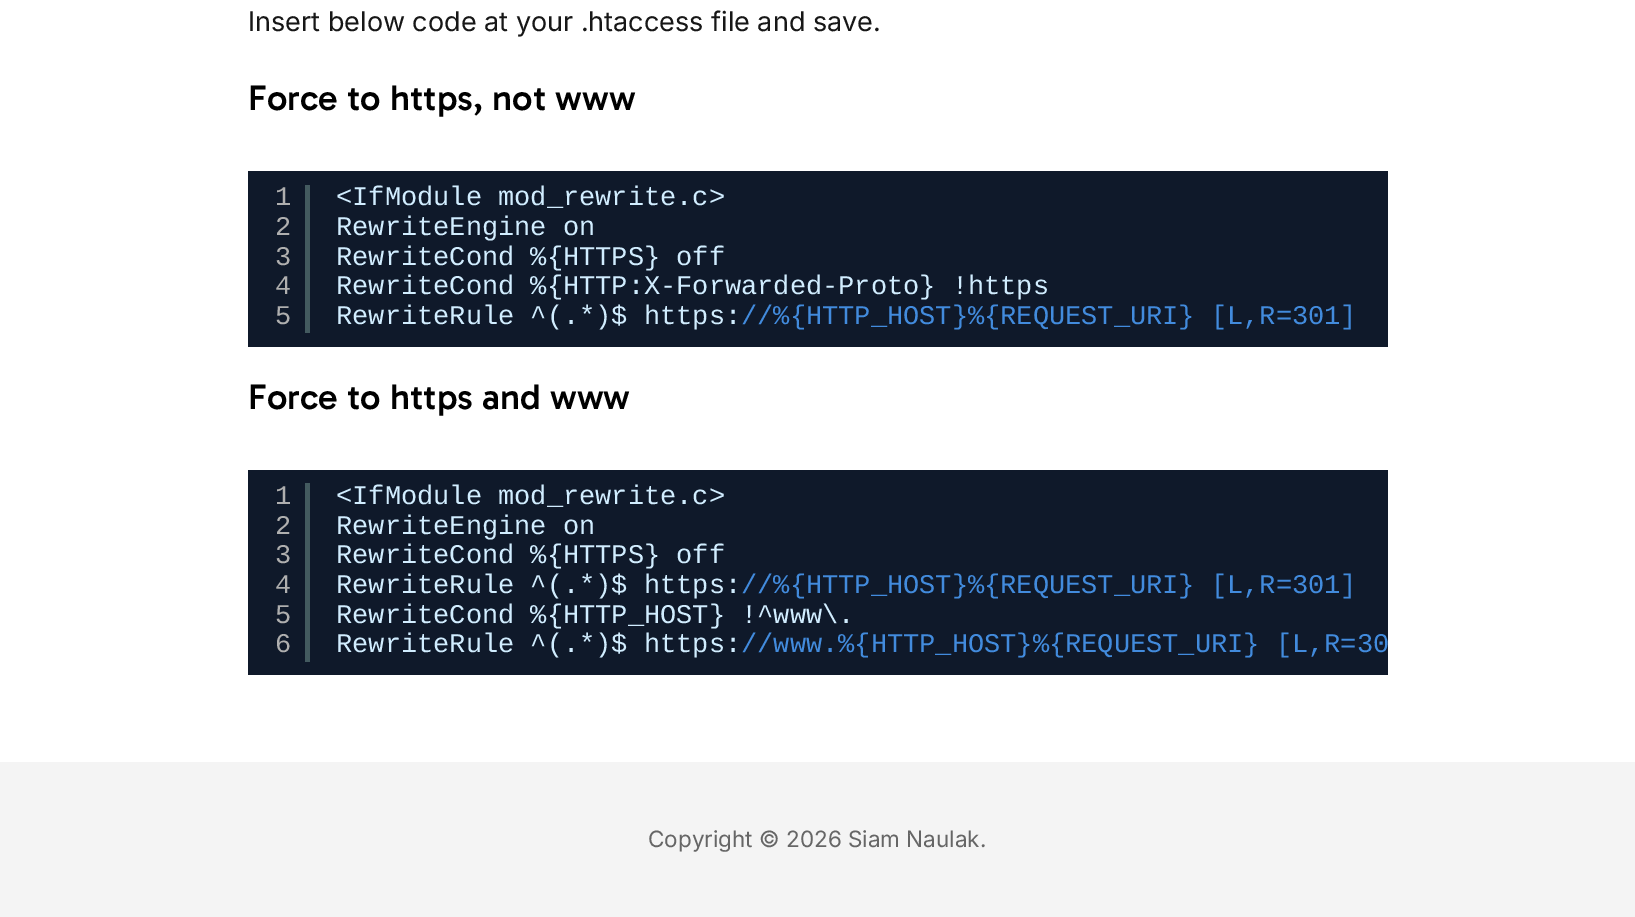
%!PS
<< /PageSize [1635 917] >> setpagedevice
/rgb { 3 { 255 div 3 1 roll } repeat setrgbcolor } def
/font { [ exch dup neg 0 0 3 -1 roll 0 0 ] selectfont } def
0 917 translate 1 -1 scale
4 setmiterlimit
255 255 255 rgb
0 0 1635 917 rectfill
[
  [248 171 1140 176 15 25 42]
  [305 185 5 148 67 90 95]
  [248 470 1140 205 15 25 42]
  [305 483 5 179 67 90 95]
  [0 762 1635 155 244 244 244]
] { aload pop rgb rectfill } forall
/Inter-Regular 27 font
23 23 23 rgb
248 31 moveto (Insert below code at your .htaccess file and save.) show
/Gabarito-Medium 36 font
0 0 0 rgb
248 110 moveto (Force to https, not www) show
/LiberationMono-Regular 27 font
175 175 175 rgb
[
  [(1) 275 205]
  [(2) 275 235]
  [(3) 275 265]
  [(4) 275 294]
  [(5) 275 324]
] { aload pop moveto show } forall
209 237 255 rgb
[
  [(<IfModule mod_rewrite.c>) 336 205]
  [(RewriteEngine on) 336 235]
  [(RewriteCond %{HTTPS} off) 336 265]
  [(RewriteCond %{HTTP:X-Forwarded-Proto} !https) 336 294]
  [(RewriteRule ^\(.*\)$ https:) 336 324]
] { aload pop moveto show } forall
66 139 221 rgb
741 324 moveto (//%{HTTP_HOST}%{REQUEST_URI} [L,R=301]) show
/Gabarito-Medium 36 font
0 0 0 rgb
248 409 moveto (Force to https and www) show
/LiberationMono-Regular 27 font
175 175 175 rgb
[
  [(1) 275 504]
  [(2) 275 534]
  [(3) 275 563]
  [(4) 275 593]
  [(5) 275 623]
  [(6) 275 652]
] { aload pop moveto show } forall
209 237 255 rgb
[
  [(<IfModule mod_rewrite.c>) 336 504]
  [(RewriteEngine on) 336 534]
  [(RewriteCond %{HTTPS} off) 336 563]
  [(RewriteRule ^\(.*\)$ https:) 336 593]
] { aload pop moveto show } forall
66 139 221 rgb
741 593 moveto (//%{HTTP_HOST}%{REQUEST_URI} [L,R=301]) show
209 237 255 rgb
336 623 moveto (RewriteCond %{HTTP_HOST} !^www\\.) show
336 652 moveto (RewriteRule ^\(.*\)$ https:) show
66 139 221 rgb
741 652 moveto (//www.%{HTTP_HOST}%{REQUEST_URI} [L,R=30) show
/Inter-Regular 22.5 font
102 102 102 rgb
648 847 moveto (Copyright © 2026 Siam Naulak.) show
showpage
